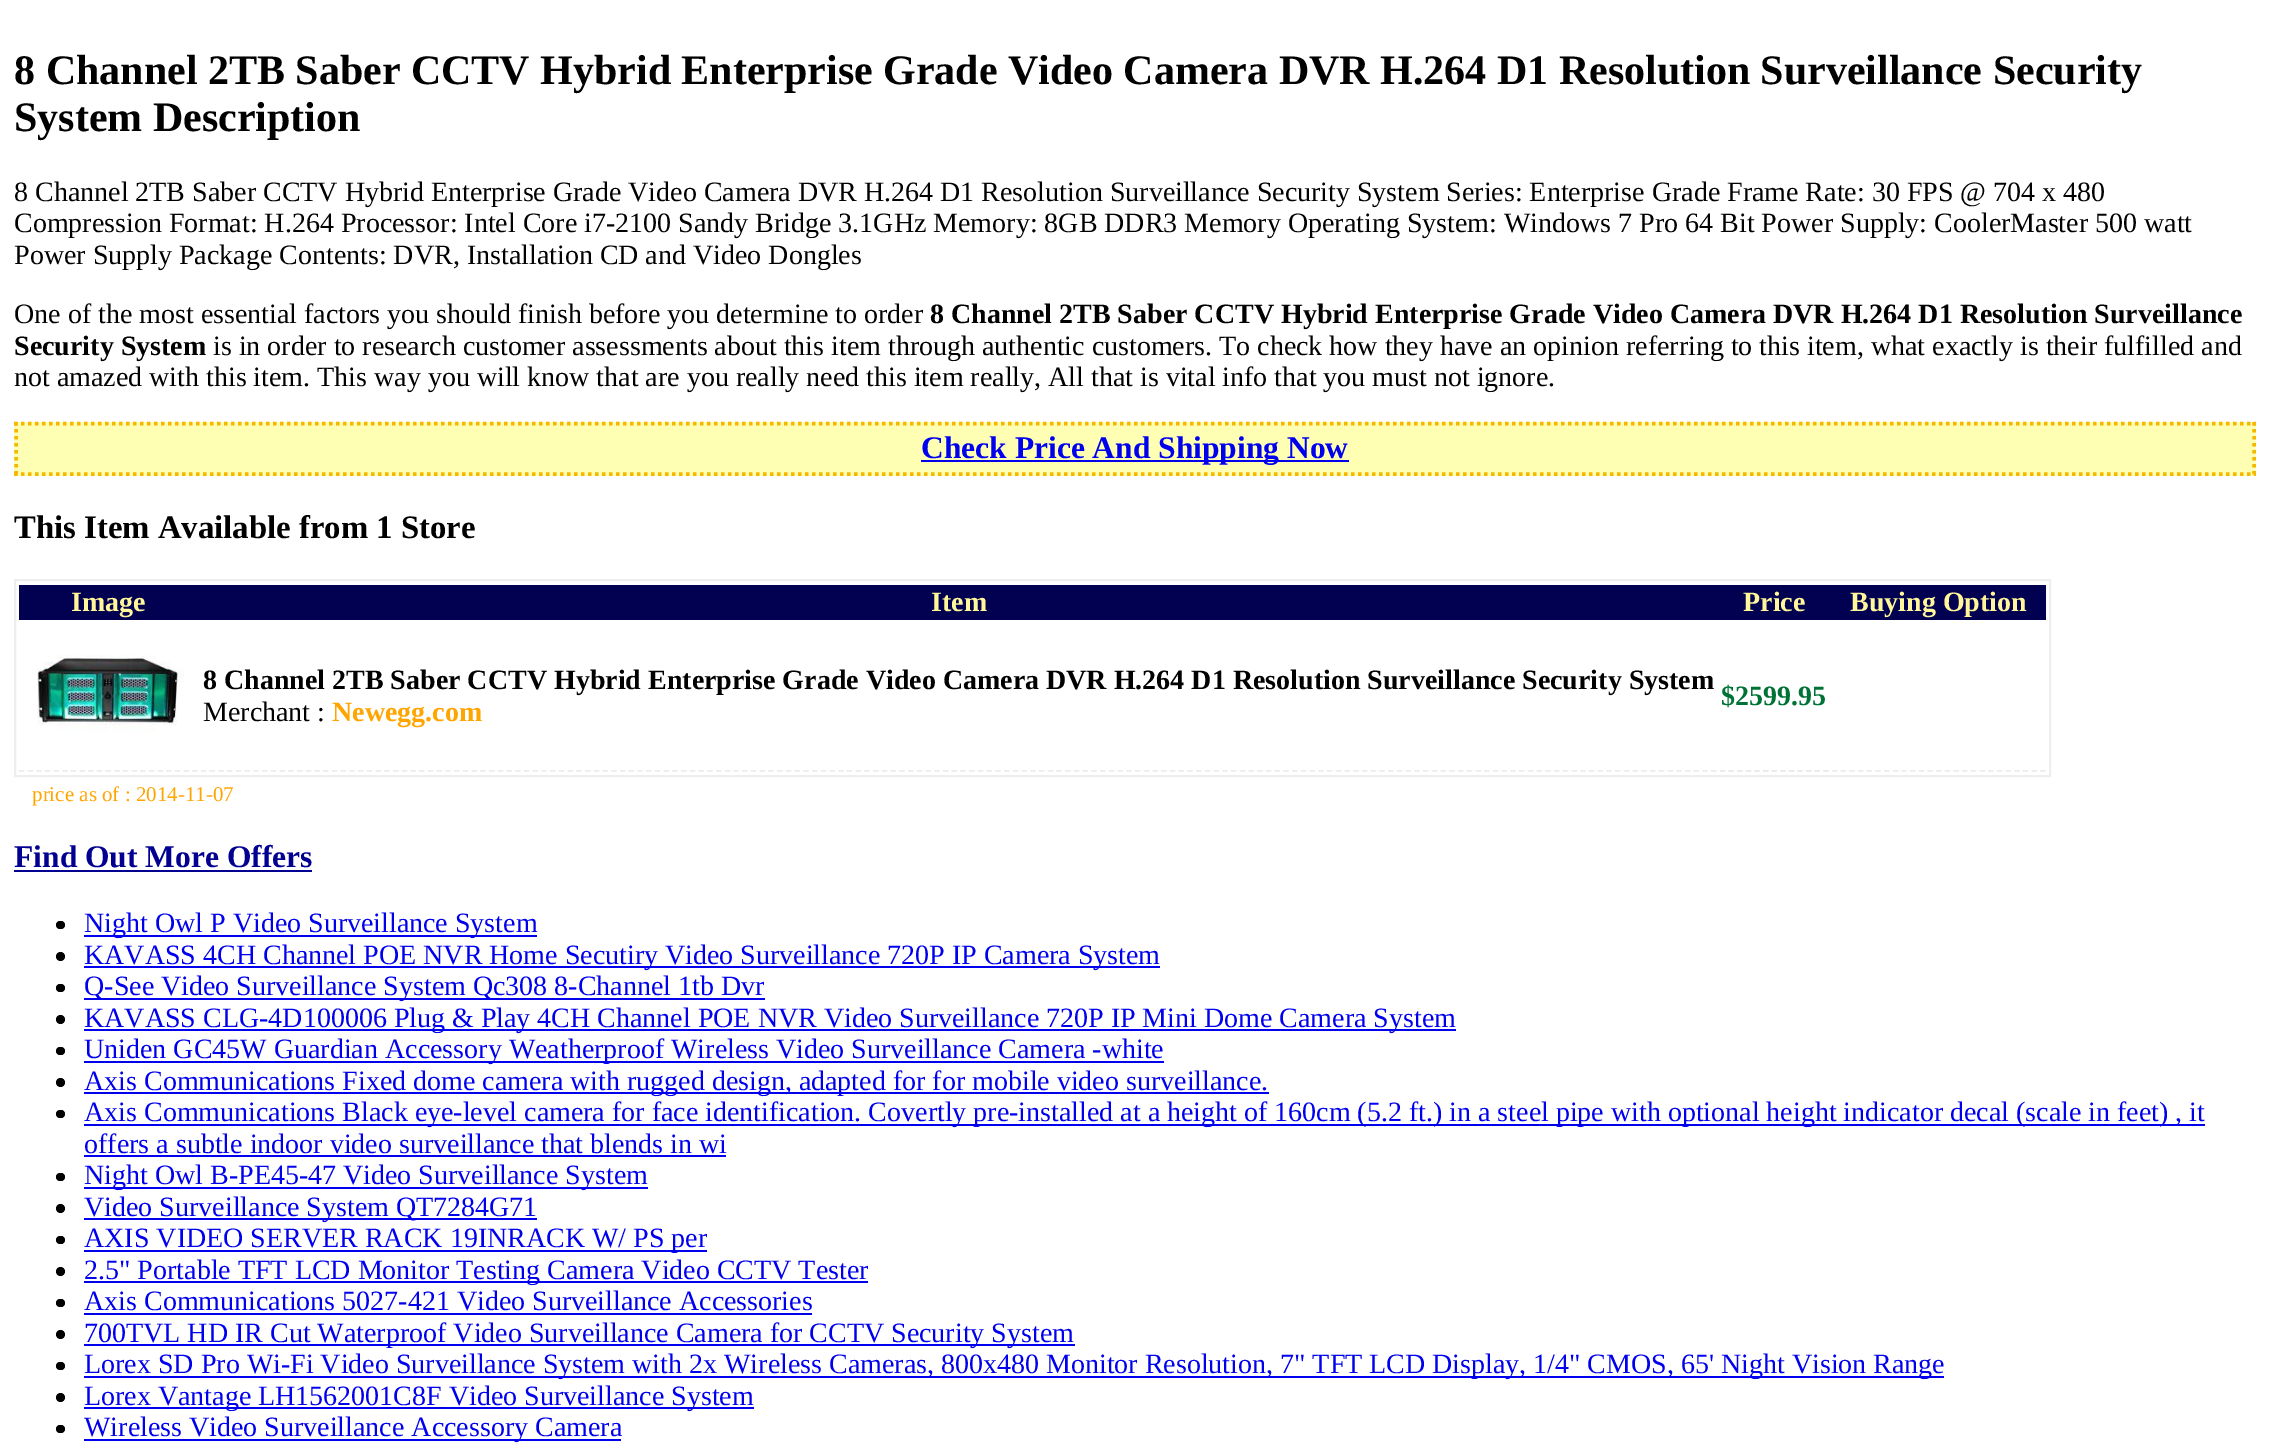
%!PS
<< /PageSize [2269 1452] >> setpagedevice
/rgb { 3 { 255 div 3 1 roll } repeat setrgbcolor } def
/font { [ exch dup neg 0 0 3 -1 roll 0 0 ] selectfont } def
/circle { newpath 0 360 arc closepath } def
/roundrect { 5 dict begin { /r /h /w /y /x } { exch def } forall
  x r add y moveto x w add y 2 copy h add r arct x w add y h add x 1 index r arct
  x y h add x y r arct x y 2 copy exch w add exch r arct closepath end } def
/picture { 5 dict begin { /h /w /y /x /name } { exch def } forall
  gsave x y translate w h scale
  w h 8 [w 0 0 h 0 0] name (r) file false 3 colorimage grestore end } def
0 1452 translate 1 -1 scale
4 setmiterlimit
255 255 255 rgb
0 0 2269 1452 rectfill
255 255 180 rgb
14 422 2242 54 rectfill
246 183 0 rgb
3.5 setlinewidth
[3.5 3.5] 0 setdash
14 423.5 moveto 2256 423.5 lineto stroke
2254 422 moveto 2254 476 lineto stroke
14 474 moveto 2256 474 lineto stroke
16 422 moveto 16 476 lineto stroke
0 0 238 rgb
921 460 428 2 rectfill
238 238 238 rgb
2 setlinewidth
[] 0 setdash
15 580 2035 196 rectstroke
2 0 80 rgb
19 585 2027 35 rectfill
238 238 238 rgb
1.8 setlinewidth
[5.25 3.41] 0 setdash
19 771 moveto 198 771 lineto stroke
(img/1.rgb) 37 655 147 77 picture
[5.25 3.48] 0 setdash
201 771 moveto 1717 771 lineto stroke
235 235 235 rgb
[5.25 3.36] 0 setdash
1720 771 moveto 1829 771 lineto stroke
238 238 238 rgb
[5.25 3.43] 0 setdash
1832 771 moveto 2046 771 lineto stroke
2 0 144 rgb
14 870 298 2 rectfill
0 0 0 rgb
56 921 9 8 4 roundrect fill
0 0 238 rgb
84 935 453 2 rectfill
0 0 0 rgb
60.5 956.5 4.5 circle fill
0 0 238 rgb
84 966 1076 2 rectfill
0 0 0 rgb
56 984 9 8 4 roundrect fill
0 0 238 rgb
84 998 681 2 rectfill
0 0 0 rgb
60.5 1019.5 4.5 circle fill
0 0 238 rgb
84 1029 1372 2 rectfill
0 0 0 rgb
56 1047 9 8 4 roundrect fill
0 0 238 rgb
84 1061 1080 2 rectfill
0 0 0 rgb
60.5 1082.5 4.5 circle fill
0 0 238 rgb
84 1092 1185 2 rectfill
0 0 0 rgb
56 1110 9 8 4 roundrect fill
0 0 238 rgb
84 1124 2121 2 rectfill
84 1155 642 2 rectfill
0 0 0 rgb
56 1173 9 8 4 roundrect fill
0 0 238 rgb
84 1187 564 2 rectfill
0 0 0 rgb
60.5 1208.5 4.5 circle fill
0 0 238 rgb
84 1218 453 2 rectfill
0 0 0 rgb
56 1236 9 8 4 roundrect fill
0 0 238 rgb
84 1250 623 2 rectfill
0 0 0 rgb
60.5 1271.5 4.5 circle fill
0 0 238 rgb
84 1281 784 2 rectfill
0 0 0 rgb
56 1299 9 8 4 roundrect fill
0 0 238 rgb
84 1313 728 2 rectfill
0 0 0 rgb
60.5 1334.5 4.5 circle fill
0 0 238 rgb
84 1344 991 2 rectfill
0 0 0 rgb
56 1362 9 8 4 roundrect fill
0 0 238 rgb
84 1376 1860 2 rectfill
0 0 0 rgb
60.5 1397.5 4.5 circle fill
0 0 238 rgb
84 1407 670 2 rectfill
0 0 0 rgb
56 1425 9 8 4 roundrect fill
0 0 238 rgb
84 1439 537 2 rectfill
/LiberationSerif-Bold 42 font
0 0 0 rgb
14 84 moveto (8 Channel 2TB Saber CCTV Hybrid Enterprise Grade Video Camera DVR H.264 D1 Resolution Surveillance Security) show
14 131 moveto (System Description) show
/LiberationSerif-Regular 28 font
[
  [(8 Channel 2TB Saber CCTV Hybrid Enterprise Grade Video Camera DVR H.264 D1 Resolution Surveillance Security System Series: Enterprise Grade Frame Rate: 30 FPS @ 704 x 480) 14 201]
  [(Compression Format: H.264 Processor: Intel Core i7-2100 Sandy Bridge 3.1GHz Memory: 8GB DDR3 Memory Operating System: Windows 7 Pro 64 Bit Power Supply: CoolerMaster 500 watt) 14 232]
  [(Power Supply Package Contents: DVR, Installation CD and Video Dongles) 14 264]
  [(One of the most essential factors you should finish before you determine to order) 14 323]
] { aload pop moveto show } forall
/LiberationSerif-Bold 28 font
930 323 moveto (8 Channel 2TB Saber CCTV Hybrid Enterprise Grade Video Camera DVR H.264 D1 Resolution Surveillance) show
14 355 moveto (Security System) show
/LiberationSerif-Regular 28 font
213 355 moveto (is in order to research customer assessments about this item through authentic customers. To check how they have an opinion referring to this item, what exactly is their fulfilled and) show
14 386 moveto (not amazed with this item. This way you will know that are you really need this item really, All that is vital info that you must not ignore.) show
/LiberationSerif-Bold 31.5 font
0 0 238 rgb
921 458 moveto (Check Price And Shipping Now) show
/LiberationSerif-Bold 32.75 font
0 0 0 rgb
14 538 moveto (This Item Available from 1 Store) show
/LiberationSerif-Bold 28 font
255 247 153 rgb
[
  [(Image) 71 611]
  [(Item) 931 611]
  [(Price) 1743 611]
  [(Buying Option) 1850 611]
] { aload pop moveto show } forall
0 0 0 rgb
203 689 moveto (8 Channel 2TB Saber CCTV Hybrid Enterprise Grade Video Camera DVR H.264 D1 Resolution Surveillance Security System) show
/LiberationSerif-Regular 28 font
203 721 moveto (Merchant :) show
/LiberationSerif-Bold 28 font
255 165 0 rgb
332 721 moveto (Newegg.com) show
0 114 54 rgb
1721 705 moveto ($2599.95) show
/LiberationSerif-Regular 21 font
255 165 0 rgb
32 801 moveto (price as of : 2014-11-07) show
/LiberationSerif-Bold 31.5 font
2 0 144 rgb
14 867 moveto (Find Out More Offers) show
/LiberationSerif-Regular 28 font
0 0 238 rgb
[
  [(Night Owl P Video Surveillance System) 84 932]
  [(KAVASS 4CH Channel POE NVR Home Secutiry Video Surveillance 720P IP Camera System) 84 964]
  [(Q-See Video Surveillance System Qc308 8-Channel 1tb Dvr) 84 995]
  [(KAVASS CLG-4D100006 Plug & Play 4CH Channel POE NVR Video Surveillance 720P IP Mini Dome Camera System) 84 1027]
  [(Uniden GC45W Guardian Accessory Weatherproof Wireless Video Surveillance Camera -white) 84 1058]
  [(Axis Communications Fixed dome camera with rugged design, adapted for for mobile video surveillance.) 84 1090]
  [(Axis Communications Black eye-level camera for face identification. Covertly pre-installed at a height of 160cm \(5.2 ft.\) in a steel pipe with optional height indicator decal \(scale in feet\) , it) 84 1121]
  [(offers a subtle indoor video surveillance that blends in wi) 84 1153]
  [(Night Owl B-PE45-47 Video Surveillance System) 84 1184]
  [(Video Surveillance System QT7284G71) 84 1216]
  [(AXIS VIDEO SERVER RACK 19INRACK W/ PS per) 84 1247]
  [(2.5" Portable TFT LCD Monitor Testing Camera Video CCTV Tester) 84 1279]
  [(Axis Communications 5027-421 Video Surveillance Accessories) 84 1310]
  [(700TVL HD IR Cut Waterproof Video Surveillance Camera for CCTV Security System) 84 1342]
  [(Lorex SD Pro Wi-Fi Video Surveillance System with 2x Wireless Cameras, 800x480 Monitor Resolution, 7" TFT LCD Display, 1/4" CMOS, 65' Night Vision Range) 84 1373]
  [(Lorex Vantage LH1562001C8F Video Surveillance System) 84 1405]
  [(Wireless Video Surveillance Accessory Camera) 84 1436]
] { aload pop moveto show } forall
showpage
